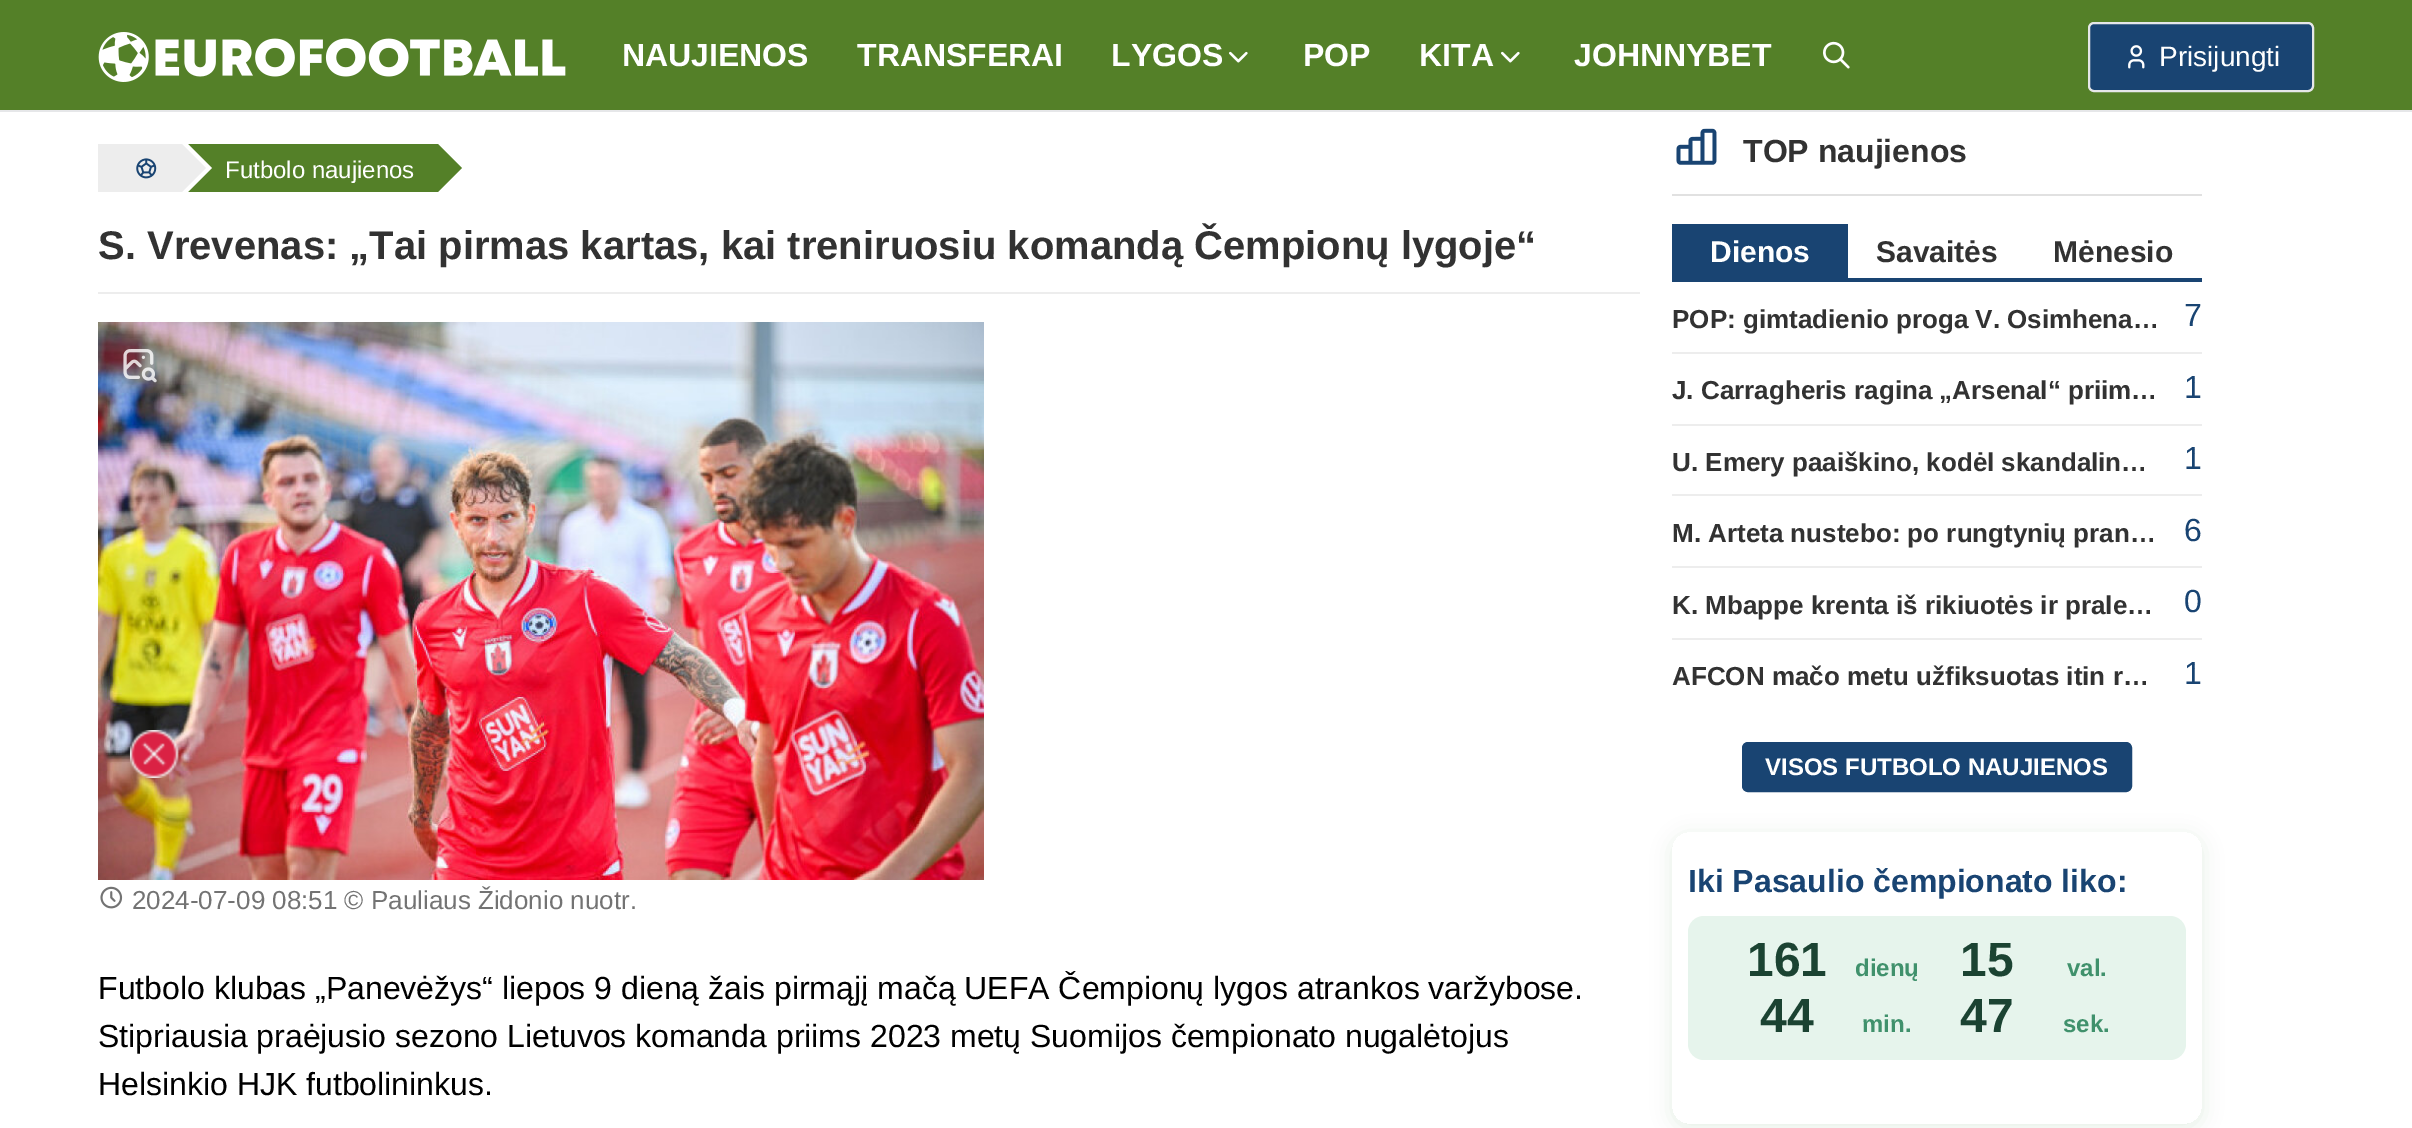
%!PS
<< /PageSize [2412 1128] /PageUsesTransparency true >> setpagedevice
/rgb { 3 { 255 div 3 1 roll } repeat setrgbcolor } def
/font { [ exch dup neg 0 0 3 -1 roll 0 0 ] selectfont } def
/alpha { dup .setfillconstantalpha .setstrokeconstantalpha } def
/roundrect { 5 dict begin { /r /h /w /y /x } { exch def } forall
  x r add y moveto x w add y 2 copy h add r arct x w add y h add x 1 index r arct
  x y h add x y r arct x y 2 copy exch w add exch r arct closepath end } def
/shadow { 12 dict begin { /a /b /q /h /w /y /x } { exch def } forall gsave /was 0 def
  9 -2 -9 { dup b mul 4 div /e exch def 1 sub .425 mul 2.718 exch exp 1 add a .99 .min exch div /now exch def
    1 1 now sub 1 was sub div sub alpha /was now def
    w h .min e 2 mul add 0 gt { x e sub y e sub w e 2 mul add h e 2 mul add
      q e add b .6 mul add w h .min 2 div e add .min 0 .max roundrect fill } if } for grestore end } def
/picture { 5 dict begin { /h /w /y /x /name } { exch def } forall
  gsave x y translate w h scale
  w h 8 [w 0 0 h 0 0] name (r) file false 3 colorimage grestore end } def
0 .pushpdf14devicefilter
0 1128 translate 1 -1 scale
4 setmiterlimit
255 255 255 rgb
0 0 2412 1128 rectfill
84 128 40 rgb
0 0 2412 110 rectfill
230 231 233 rgb
0 110 2412 2 rectfill
(img/1.rgb) 98 32 468 50 picture
(img/2.rgb) 1229 51 19 12 picture
(img/2.rgb) 1501 51 19 12 picture
(img/3.rgb) 1823 41 27 28 picture
25 68 114 rgb
2089 23 224 68 5 roundrect gsave fill grestore
230 231 233 rgb
2 setlinewidth
stroke
(img/4.rgb) 2128 45 17 24 picture
237 237 237 rgb
98 144 84 48 rectfill
84 128 40 rgb
188 144 250 48 rectfill
255 255 255 rgb
188 192 moveto 188 144 lineto 212 168 lineto closepath fill
237 237 237 rgb
182 192 moveto 182 144 lineto 206 168 lineto closepath fill
(img/5.rgb) 136 158 21 21 picture
84 128 40 rgb
438 192 moveto 438 144 lineto 462 168 lineto closepath fill
237 237 237 rgb
98 292 1542 2 rectfill
(img/6.rgb) 98 322 886 558 picture
(img/7.rgb) 123 349 34 34 picture
(img/8.rgb) 100 886 23 23 picture
(img/9.rgb) 130 730 49 48 picture
225 225 225 rgb
1672 194 530 2 rectfill
(img/10.rgb) 1676 128 41 37 picture
[
  [1672 278 530 4 25 68 114]
  [1672 224 176 54 25 68 114]
  [1672 352 530 2 237 237 237]
  [1672 424 530 2 237 237 237]
  [1672 494 530 2 237 237 237]
  [1672 566 530 2 237 237 237]
  [1672 638 530 2 237 237 237]
] { aload pop rgb rectfill } forall
25 68 114 rgb
1743 743 388 48 5 roundrect gsave fill grestore
stroke
gsave
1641 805 moveto 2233 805 lineto 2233 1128 lineto 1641 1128 lineto closepath 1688 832 moveto 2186 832 lineto 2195 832 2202 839 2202 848 curveto 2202 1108 lineto 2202 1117 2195 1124 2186 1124 curveto 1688 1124 lineto 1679 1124 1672 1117 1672 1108 curveto 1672 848 lineto 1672 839 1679 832 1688 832 curveto closepath eoclip newpath
0 100 0 rgb
1672 836 530 292 16 10 0.1 shadow
grestore
230 244 236 rgb
1688 916 498 144 16 roundrect fill
/LiberationSans-Bold 32 font
255 255 255 rgb
[
  [(NAUJIENOS) 622 66]
  [(TRANSFERAI) 857 66]
  [(LYGOS) 1111 66]
  [(POP) 1303 66]
  [(KITA) 1419 66]
  [(JOHNNYBET) 1574 66]
] { aload pop moveto show } forall
/LiberationSans-Regular 28 font
2159 66 moveto (Prisijungti) show
/LiberationSans-Regular 24 font
225 178 moveto (Futbolo naujienos) show
/LiberationSans-Bold 40 font
50 50 50 rgb
98 259 moveto (S. Vrevenas: „Tai pirmas kartas, kai treniruosiu komandą Čempionų lygoje“) show
/LiberationSans-Regular 26 font
115 115 115 rgb
132 909 moveto (2024-07-09 08:51 © Pauliaus Židonio nuotr.) show
/LiberationSans-Regular 32 font
0 0 0 rgb
[
  [(Futbolo klubas „Panevėžys“ liepos 9 dieną žais pirmąjį mačą UEFA Čempionų lygos atrankos varžybose.) 98 999]
  [(Stipriausia praėjusio sezono Lietuvos komanda priims 2023 metų Suomijos čempionato nugalėtojus) 98 1047]
  [(Helsinkio HJK futbolininkus.) 98 1095]
] { aload pop moveto show } forall
/LiberationSans-Bold 32 font
50 50 50 rgb
1743 162 moveto (TOP naujienos) show
/LiberationSans-Bold 30 font
255 255 255 rgb
1710 262 moveto (Dienos) show
50 50 50 rgb
1876 262 moveto (Savaitės) show
2053 262 moveto (Mėnesio) show
/LiberationSans-Bold 26 font
1672 328 moveto (POP: gimtadienio proga V. Osimhena…) show
/LiberationSans-Regular 32 font
25 68 114 rgb
2184 326 moveto (7) show
/LiberationSans-Bold 26 font
50 50 50 rgb
1672 399 moveto (J. Carragheris ragina „Arsenal“ priim…) show
/LiberationSans-Regular 32 font
25 68 114 rgb
2184 398 moveto (1) show
/LiberationSans-Bold 26 font
50 50 50 rgb
1672 471 moveto (U. Emery paaiškino, kodėl skandalin…) show
/LiberationSans-Regular 32 font
25 68 114 rgb
2184 469 moveto (1) show
/LiberationSans-Bold 26 font
50 50 50 rgb
1672 542 moveto (M. Arteta nustebo: po rungtynių pran…) show
/LiberationSans-Regular 32 font
25 68 114 rgb
2184 541 moveto (6) show
/LiberationSans-Bold 26 font
50 50 50 rgb
1672 614 moveto (K. Mbappe krenta iš rikiuotės ir prale…) show
/LiberationSans-Regular 32 font
25 68 114 rgb
2184 612 moveto (0) show
/LiberationSans-Bold 26 font
50 50 50 rgb
1672 685 moveto (AFCON mačo metu užfiksuotas itin r…) show
/LiberationSans-Regular 32 font
25 68 114 rgb
2184 684 moveto (1) show
/LiberationSans-Bold 24 font
255 255 255 rgb
1765 775 moveto (VISOS FUTBOLO NAUJIENOS) show
/LiberationSans-Bold 32 font
25 68 114 rgb
1688 892 moveto (Iki Pasaulio čempionato liko:) show
/LiberationSans-Bold 48 font
27 67 50 rgb
1747 976 moveto (161) show
/LiberationSans-Bold 24 font
64 145 108 rgb
1855 976 moveto (dienų) show
/LiberationSans-Bold 48 font
27 67 50 rgb
1960 976 moveto (15) show
/LiberationSans-Bold 24 font
64 145 108 rgb
2067 976 moveto (val.) show
/LiberationSans-Bold 48 font
27 67 50 rgb
1760 1032 moveto (44) show
/LiberationSans-Bold 24 font
64 145 108 rgb
1862 1032 moveto (min.) show
/LiberationSans-Bold 48 font
27 67 50 rgb
1960 1032 moveto (47) show
/LiberationSans-Bold 24 font
64 145 108 rgb
2063 1032 moveto (sek.) show
.poppdf14devicefilter showpage
